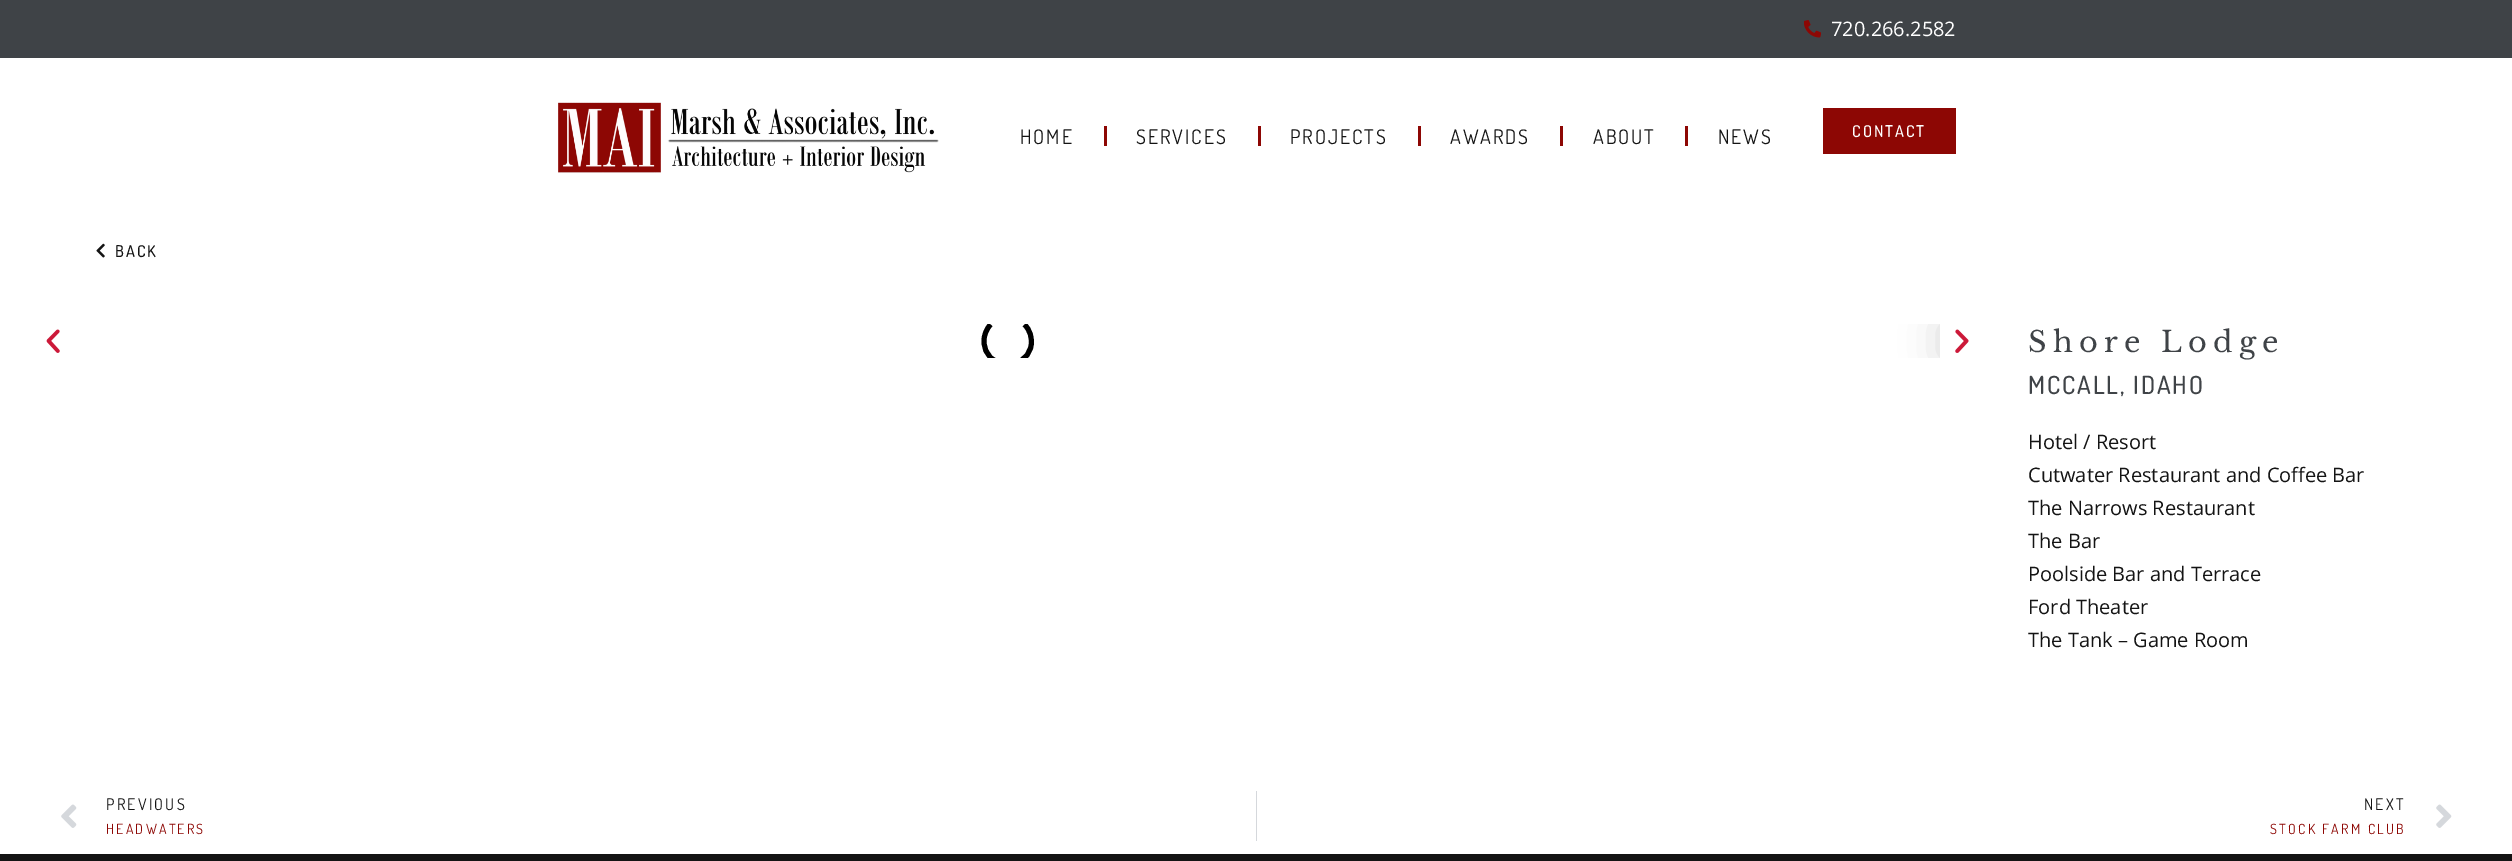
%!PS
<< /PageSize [2512 861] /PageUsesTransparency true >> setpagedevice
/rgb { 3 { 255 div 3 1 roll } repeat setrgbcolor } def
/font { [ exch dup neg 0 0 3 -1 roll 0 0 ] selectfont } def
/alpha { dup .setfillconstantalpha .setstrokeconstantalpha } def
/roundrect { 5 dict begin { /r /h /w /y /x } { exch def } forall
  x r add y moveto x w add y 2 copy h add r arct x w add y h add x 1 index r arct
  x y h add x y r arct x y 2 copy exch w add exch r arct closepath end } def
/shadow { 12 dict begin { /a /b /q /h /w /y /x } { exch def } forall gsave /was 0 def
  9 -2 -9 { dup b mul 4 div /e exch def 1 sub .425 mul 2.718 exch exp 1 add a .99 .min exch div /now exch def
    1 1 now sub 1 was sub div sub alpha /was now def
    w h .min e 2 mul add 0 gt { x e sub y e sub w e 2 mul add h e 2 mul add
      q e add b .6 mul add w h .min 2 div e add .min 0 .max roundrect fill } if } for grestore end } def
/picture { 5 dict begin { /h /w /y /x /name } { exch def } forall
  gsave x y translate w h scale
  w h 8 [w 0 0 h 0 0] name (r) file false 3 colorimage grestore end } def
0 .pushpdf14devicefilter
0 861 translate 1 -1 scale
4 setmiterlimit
255 255 255 rgb
0 0 2512 861 rectfill
63 67 71 rgb
0 0 2512 58 rectfill
(img/1.rgb) 1804 20 17 18 picture
(img/2.rgb) 558 102 381 71 picture
[
  [1104 126 3 20 141 7 4]
  [1258 126 3 20 141 7 4]
  [1418 126 3 20 141 7 4]
  [1560 126 3 20 141 7 4]
  [1685 126 3 20 141 7 4]
  [1823 108 133 46 141 7 4]
] { aload pop rgb rectfill } forall
(img/3.rgb) 96 243 9 15 picture
(img/4.rgb) 46 329 14 24 picture
gsave
75 324 1865 34 rectclip
0 0 0 rgb
5 setlinewidth
1024.5 324.5 moveto 1030 330 1032.5 338 1031 346 curveto 1025 373.5 984 369.5 984 341 curveto 984 335 986.5 329 990.5 324.5 curveto stroke
grestore
gsave
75 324 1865 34 rectclip
0 0 0 rgb
1940 324 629 34 0 19 0.15 shadow
grestore
(img/5.rgb) 1955 329 14 24 picture
(img/6.rgb) 61 804 16 24 picture
213 216 220 rgb
1256 791 1 50 rectfill
(img/7.rgb) 2436 804 16 24 picture
20 20 20 rgb
0 854 2512 7 rectfill
/OpenSans-Regular 20 font
255 255 255 rgb
1831 36 moveto (720.266.2582) show
/Dosis-Regular 20 font
20 20 20 rgb
1020 144 moveto 1.9 0 (HOME) ashow
1136 144 moveto 1.9 0 (SERVICES) ashow
1290 144 moveto 1.9 0 (PROJECTS) ashow
1450 144 moveto 1.9 0 (AWARDS) ashow
1593 144 moveto 1.9 0 (ABOUT) ashow
1718 144 moveto 1.9 0 (NEWS) ashow
/Dosis-Medium 16.25 font
255 255 255 rgb
1852 137 moveto 1.9 0 (CONTACT) ashow
20 20 20 rgb
115 257 moveto 1.9 0 (BACK) ashow
/LibreBaskerville-Regular 28.75 font
63 67 71 rgb
2028 352 moveto 6.25 0 (Shore Lodge) ashow
/Dosis-Medium 25 font
2028 394 moveto 1.9 0 (MCCALL, IDAHO) ashow
/OpenSans-Regular 20 font
20 20 20 rgb
[
  [(Hotel / Resort) 2028 449]
  [(Cutwater Restaurant and Coffee Bar) 2028 482]
  [(The Narrows Restaurant) 2028 515]
  [(The Bar) 2028 548]
  [(Poolside Bar and Terrace) 2028 581]
  [(Ford Theater) 2028 614]
  [(The Tank – Game Room) 2028 647]
] { aload pop moveto show } forall
/Dosis-Regular 16 font
106 810 moveto 2.25 0 (PREVIOUS) ashow
/Dosis-Regular 14 font
141 7 4 rgb
106 834 moveto 2.25 0 (HEADWATERS) ashow
/Dosis-Regular 16 font
20 20 20 rgb
2364 810 moveto 2.25 0 (NEXT) ashow
/Dosis-Regular 14 font
141 7 4 rgb
2270 834 moveto 2.25 0 (STOCK FARM CLUB) ashow
.poppdf14devicefilter showpage
